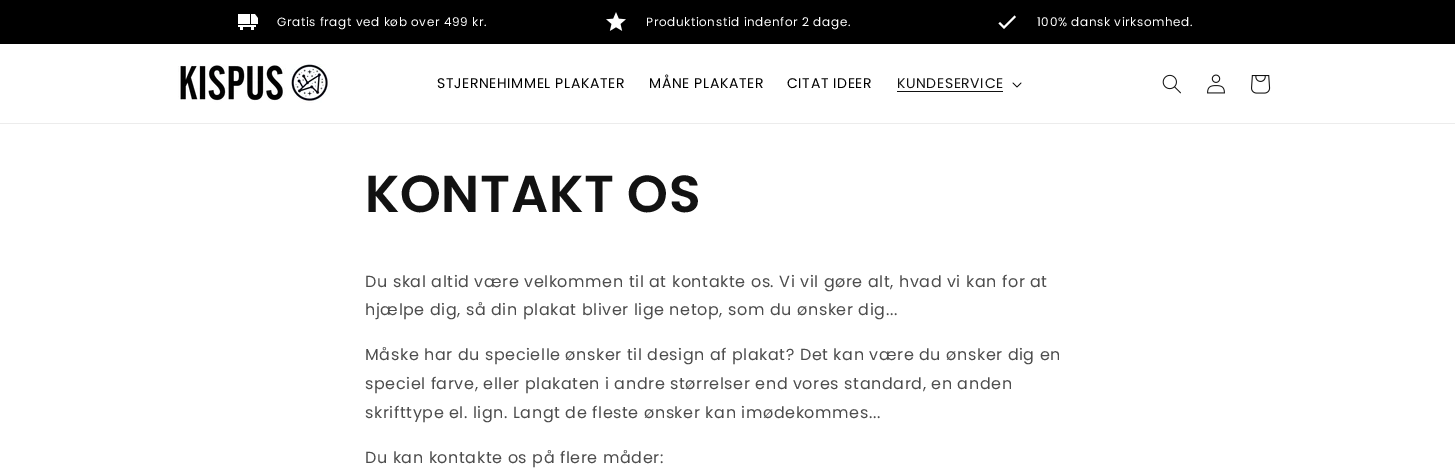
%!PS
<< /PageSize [1455 471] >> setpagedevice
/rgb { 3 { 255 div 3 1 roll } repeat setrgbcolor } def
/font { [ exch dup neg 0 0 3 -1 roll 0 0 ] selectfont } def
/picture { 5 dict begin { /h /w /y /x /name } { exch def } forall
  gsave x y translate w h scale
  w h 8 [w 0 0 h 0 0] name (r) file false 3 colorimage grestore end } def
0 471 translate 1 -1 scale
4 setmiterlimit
255 255 255 rgb
0 0 1455 471 rectfill
0 0 0 rgb
0 0 1455 44 rectfill
(img/1.rgb) 238 14 20 16 picture
(img/2.rgb) 606 12 20 19 picture
255 255 255 rgb
1004 26 moveto 1000 22 lineto 998.5 23.5 lineto 1004 29 lineto 1016 17 lineto 1014.5 15.5 lineto closepath fill
236 236 236 rgb
0 123 1455 1 rectfill
(img/3.rgb) 178 64 152 39 picture
18 18 18 rgb
897 91 106 1 rectfill
(img/4.rgb) 1012 82 10 6 picture
(img/5.rgb) 1162 74 19 20 picture
(img/6.rgb) 1207 74 18 20 picture
(img/7.rgb) 1251 75 20 19 picture
/Poppins-Regular 12 font
255 255 255 rgb
277 26 moveto 0.6 0 (Gratis fragt ved køb over 499 kr.) ashow
646 26 moveto 0.6 0 (Produktionstid indenfor 2 dage.) ashow
1037 26 moveto 0.6 0 (100% dansk virksomhed.) ashow
/Poppins-Regular 14 font
0 0 0 rgb
437 88 moveto 0.6 0 (STJERNEHIMMEL PLAKATER) ashow
649 88 moveto 0.6 0 (MÅNE PLAKATER) ashow
787 88 moveto 0.6 0 (CITAT IDEER) ashow
18 18 18 rgb
897 88 moveto 0.6 0 (KUNDESERVICE) ashow
/Poppins-SemiBold 52 font
365 212 moveto 0.6 0 (KONTAKT OS) ashow
/Poppins-Regular 16 font
77 77 77 rgb
365 287 moveto 0.6 0 (Du skal altid være velkommen til at kontakte os. Vi vil gøre alt, hvad vi kan for at) ashow
365 315 moveto 0.6 0 (hjælpe dig, så din plakat bliver lige netop, som du ønsker dig...) ashow
365 360 moveto 0.6 0 (Måske har du specielle ønsker til design af plakat? Det kan være du ønsker dig en) ashow
365 389 moveto 0.6 0 (speciel farve, eller plakaten i andre størrelser end vores standard, en anden) ashow
365 418 moveto 0.6 0 (skrifttype el. lign. Langt de fleste ønsker kan imødekommes...) ashow
365 463 moveto 0.6 0 (Du kan kontakte os på flere måder:) ashow
showpage
